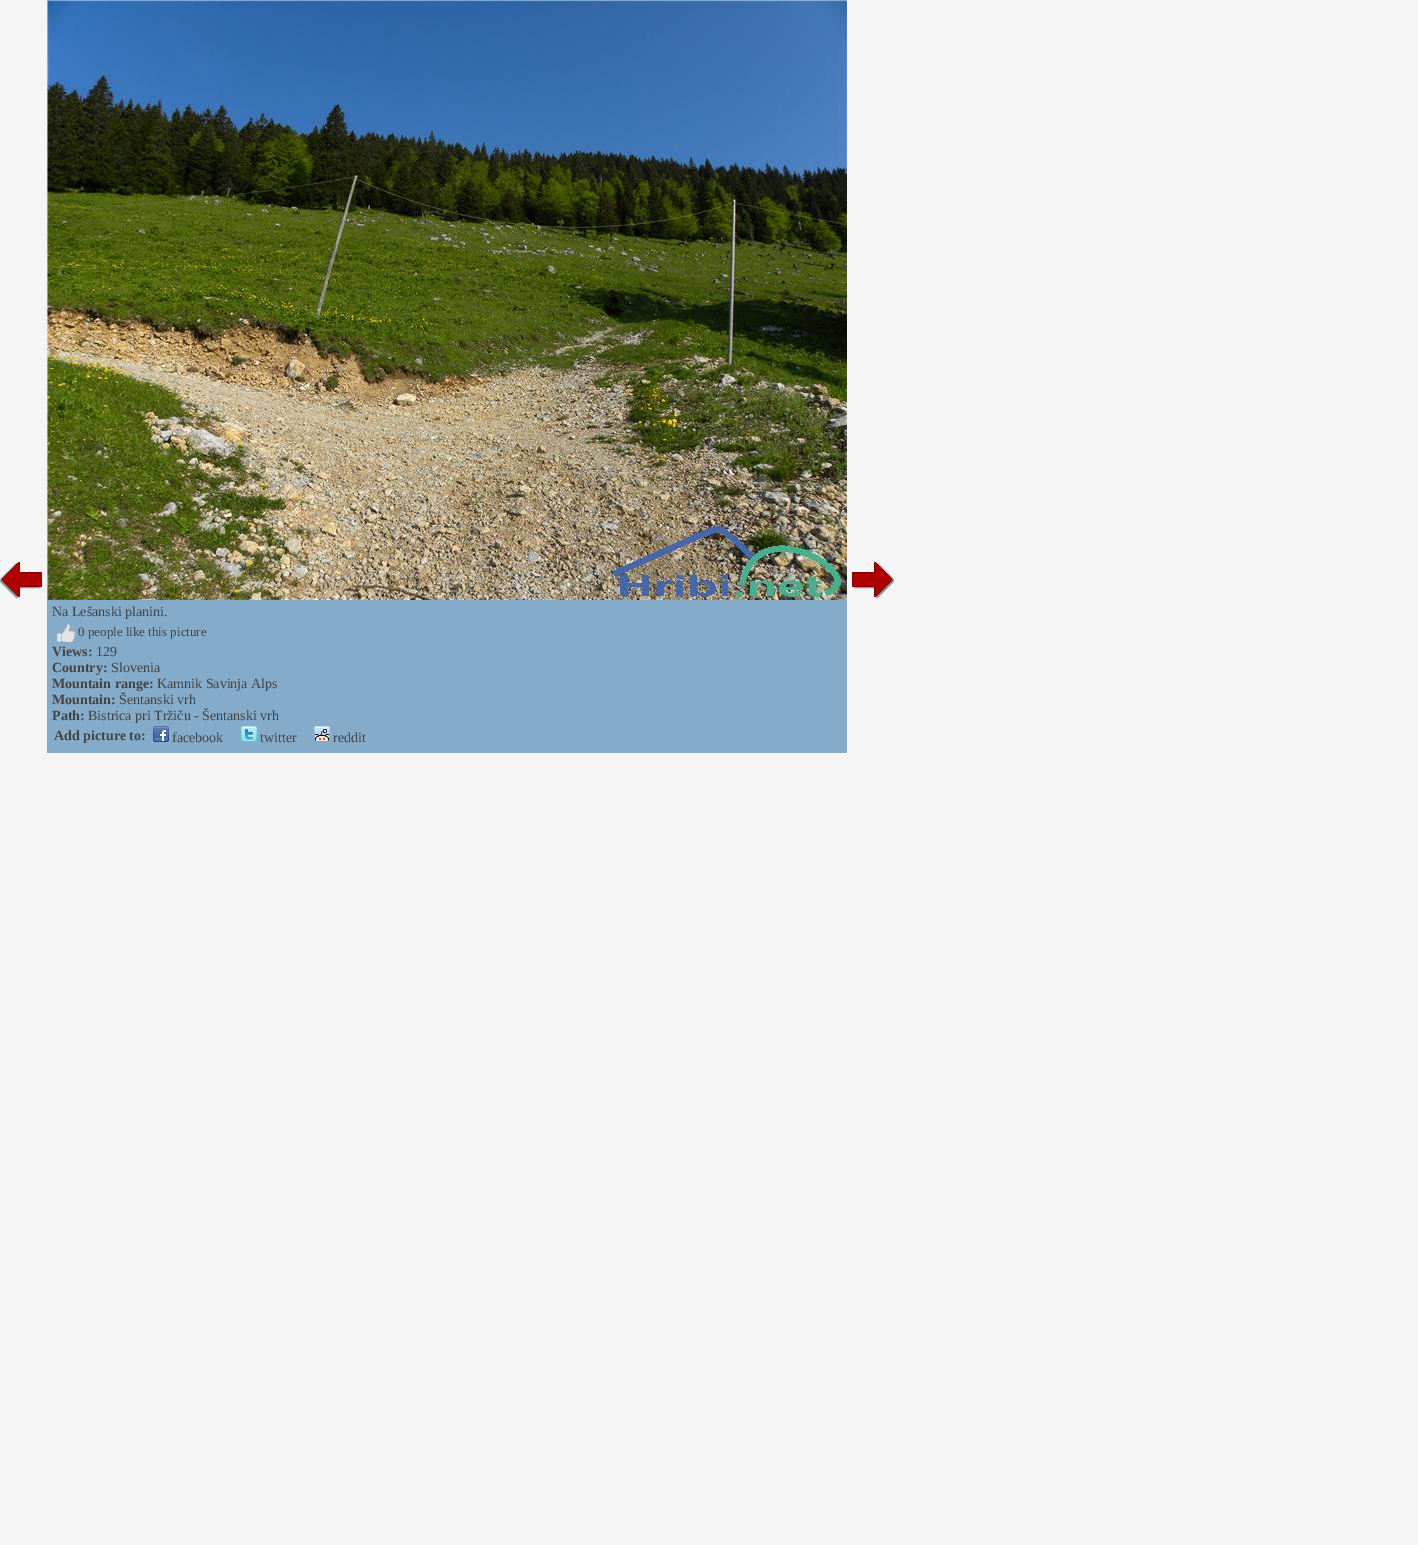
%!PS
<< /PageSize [1418 1545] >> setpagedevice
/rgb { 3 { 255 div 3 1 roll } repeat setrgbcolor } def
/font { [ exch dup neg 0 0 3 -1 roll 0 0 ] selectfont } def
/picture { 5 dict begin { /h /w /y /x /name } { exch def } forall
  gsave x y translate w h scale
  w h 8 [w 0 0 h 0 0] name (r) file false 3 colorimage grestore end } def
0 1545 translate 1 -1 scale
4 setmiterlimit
245 245 245 rgb
0 0 1418 1545 rectfill
(img/1.rgb) 0 562 42 37 picture
(img/2.rgb) 852 562 42 37 picture
133 171 202 rgb
47 600 800 153 rectfill
(img/3.rgb) 47 0 800 600 picture
(img/4.rgb) 57 624 18 18 picture
(img/5.rgb) 153 726 16 16 picture
(img/6.rgb) 241 726 16 16 picture
(img/7.rgb) 314 726 16 16 picture
/LiberationSerif-Regular 14 font
68 68 68 rgb
52 616 moveto (Na Lešanski planini.) show
/LiberationSerif-Regular 13 font
78 636 moveto (0 people like this picture) show
/LiberationSerif-Bold 14 font
52 656 moveto (Views:) show
/LiberationSerif-Regular 14 font
96 656 moveto (129) show
/LiberationSerif-Bold 14 font
52 672 moveto (Country:) show
/LiberationSerif-Regular 14 font
111 672 moveto (Slovenia) show
/LiberationSerif-Bold 14 font
52 688 moveto (Mountain range:) show
/LiberationSerif-Regular 14 font
157 688 moveto (Kamnik Savinja Alps) show
/LiberationSerif-Bold 14 font
52 704 moveto (Mountain:) show
/LiberationSerif-Regular 14 font
119 704 moveto (Šentanski vrh) show
/LiberationSerif-Bold 14 font
52 720 moveto (Path:) show
/LiberationSerif-Regular 14 font
88 720 moveto (Bistrica pri Tržiču - Šentanski vrh) show
/LiberationSerif-Bold 14 font
54 740 moveto (Add picture to:) show
/LiberationSerif-Regular 14 font
[
  [(facebook) 172 742]
  [(twitter) 260 742]
  [(reddit) 333 742]
] { aload pop moveto show } forall
showpage
